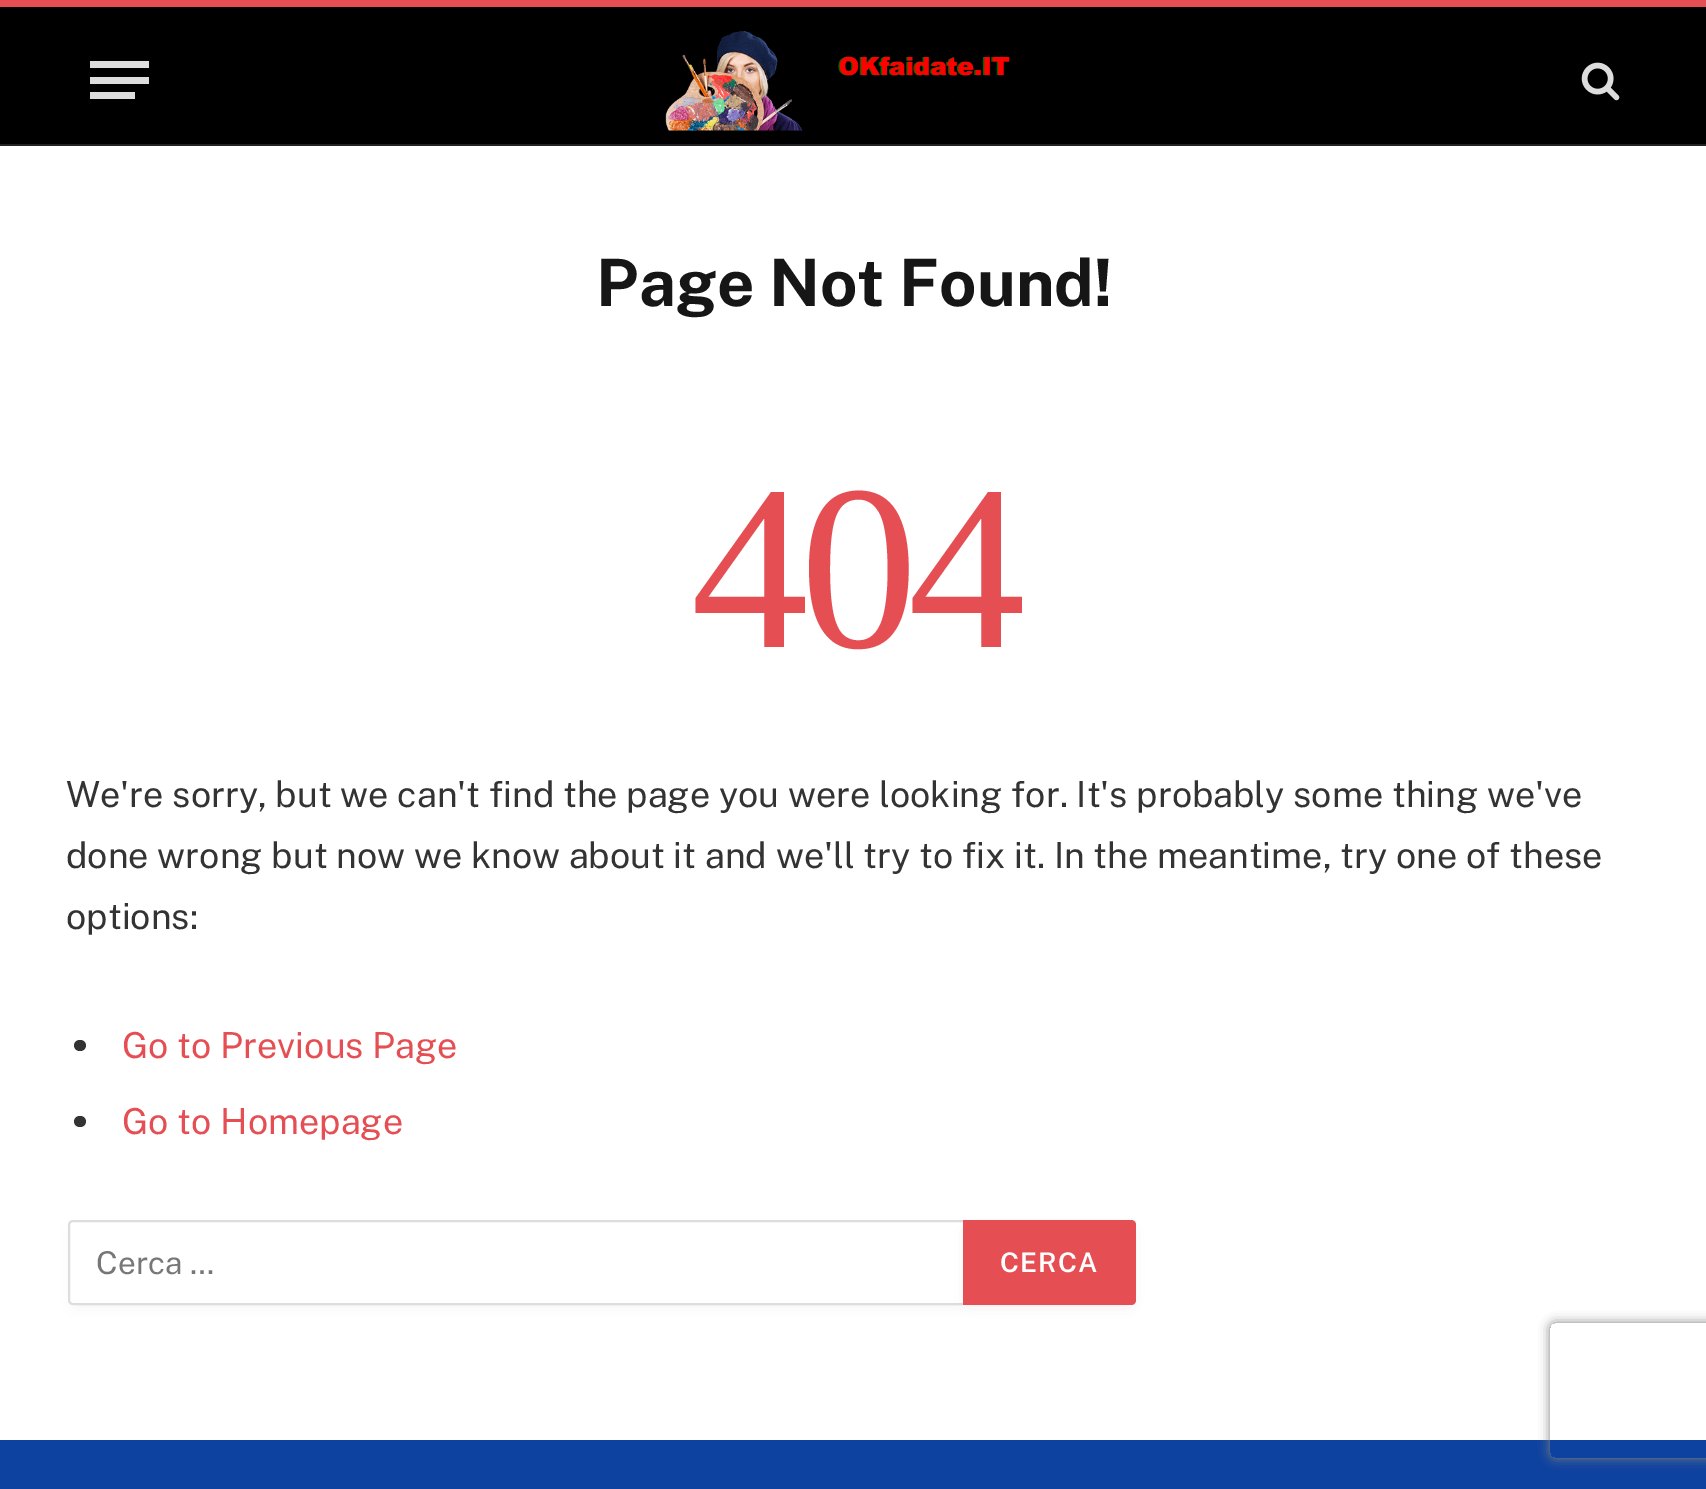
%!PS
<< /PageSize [1706 1489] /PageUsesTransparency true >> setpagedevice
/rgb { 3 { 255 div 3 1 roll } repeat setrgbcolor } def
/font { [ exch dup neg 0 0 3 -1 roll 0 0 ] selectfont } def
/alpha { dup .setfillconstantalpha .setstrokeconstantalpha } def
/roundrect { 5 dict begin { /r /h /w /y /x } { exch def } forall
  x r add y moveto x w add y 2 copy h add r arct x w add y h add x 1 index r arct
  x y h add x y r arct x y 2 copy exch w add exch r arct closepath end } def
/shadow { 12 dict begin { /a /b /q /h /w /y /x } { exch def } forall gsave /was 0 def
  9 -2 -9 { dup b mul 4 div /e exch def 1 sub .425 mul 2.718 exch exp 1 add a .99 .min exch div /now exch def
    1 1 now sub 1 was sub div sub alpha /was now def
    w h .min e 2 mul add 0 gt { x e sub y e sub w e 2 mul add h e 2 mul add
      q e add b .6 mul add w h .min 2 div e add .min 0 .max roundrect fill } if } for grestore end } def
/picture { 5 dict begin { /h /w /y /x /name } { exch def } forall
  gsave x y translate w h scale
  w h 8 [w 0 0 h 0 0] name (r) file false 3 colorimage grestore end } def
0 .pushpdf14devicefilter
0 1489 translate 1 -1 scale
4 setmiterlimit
255 255 255 rgb
0 0 1706 1489 rectfill
[
  [0 7 1706 137 0 0 0]
  [0 0 1706 7 229 78 83]
  [0 144 1706 2 34 34 34]
  [90 92 45 7 221 221 221]
  [90 61 59 7 221 221 221]
  [90 77 59 7 221 221 221]
] { aload pop rgb rectfill } forall
(img/1.rgb) 665 31 345 100 picture
(img/2.rgb) 1581 62 39 39 picture
51 51 51 rgb
74 1040 12 11 5.5 roundrect fill
74 1116 12 11 5.5 roundrect fill
0 0 0 rgb
77 1233 882 68 0 8 0.1 shadow
255 255 255 rgb
69 1221 898 83 4 roundrect gsave fill grestore
221 221 221 rgb
2 setlinewidth
stroke
0 0 0 rgb
972 1233 155 68 0 8 0.16 shadow
229 78 83 rgb
963 1220 moveto 1131 1220 lineto 1134 1220 1136 1222 1136 1225 curveto 1136 1300 lineto 1136 1303 1134 1305 1131 1305 curveto 963 1305 lineto closepath fill
14 66 160 rgb
0 1440 1706 49 rectfill
gsave
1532 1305 moveto 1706 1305 lineto 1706 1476 lineto 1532 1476 lineto closepath 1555 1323 moveto 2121 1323 lineto 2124 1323 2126 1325 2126 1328 curveto 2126 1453 lineto 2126 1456 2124 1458 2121 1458 curveto 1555 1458 lineto 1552 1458 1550 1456 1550 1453 curveto 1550 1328 lineto 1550 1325 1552 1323 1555 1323 curveto closepath eoclip newpath
128 128 128 rgb
1550 1323 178 135 5 5.5 1 shadow
grestore
/PublicSans-Bold 65.25 font
22 22 22 rgb
596 306 moveto (Page Not Found!) show
/LiberationSerif-Regular 236 font
229 78 83 rgb
691 647 moveto -9.5 0 (404) ashow
/PublicSans-Regular 35.85 font
51 51 51 rgb
[
  [(We're sorry, but we can't find the page you were looking for. It's probably some thing we've) 66 807]
  [(done wrong but now we know about it and we'll try to fix it. In the meantime, try one of these) 66 868]
  [(options:) 66 929]
] { aload pop moveto show } forall
229 78 83 rgb
122 1058 moveto (Go to Previous Page) show
122 1134 moveto (Go to Homepage) show
/PublicSans-Regular 31.5 font
119 119 119 rgb
96 1274 moveto (Cerca …) show
/PublicSans-SemiBold 27 font
255 255 255 rgb
1000 1272 moveto 1 0 (CERCA) ashow
.poppdf14devicefilter showpage
